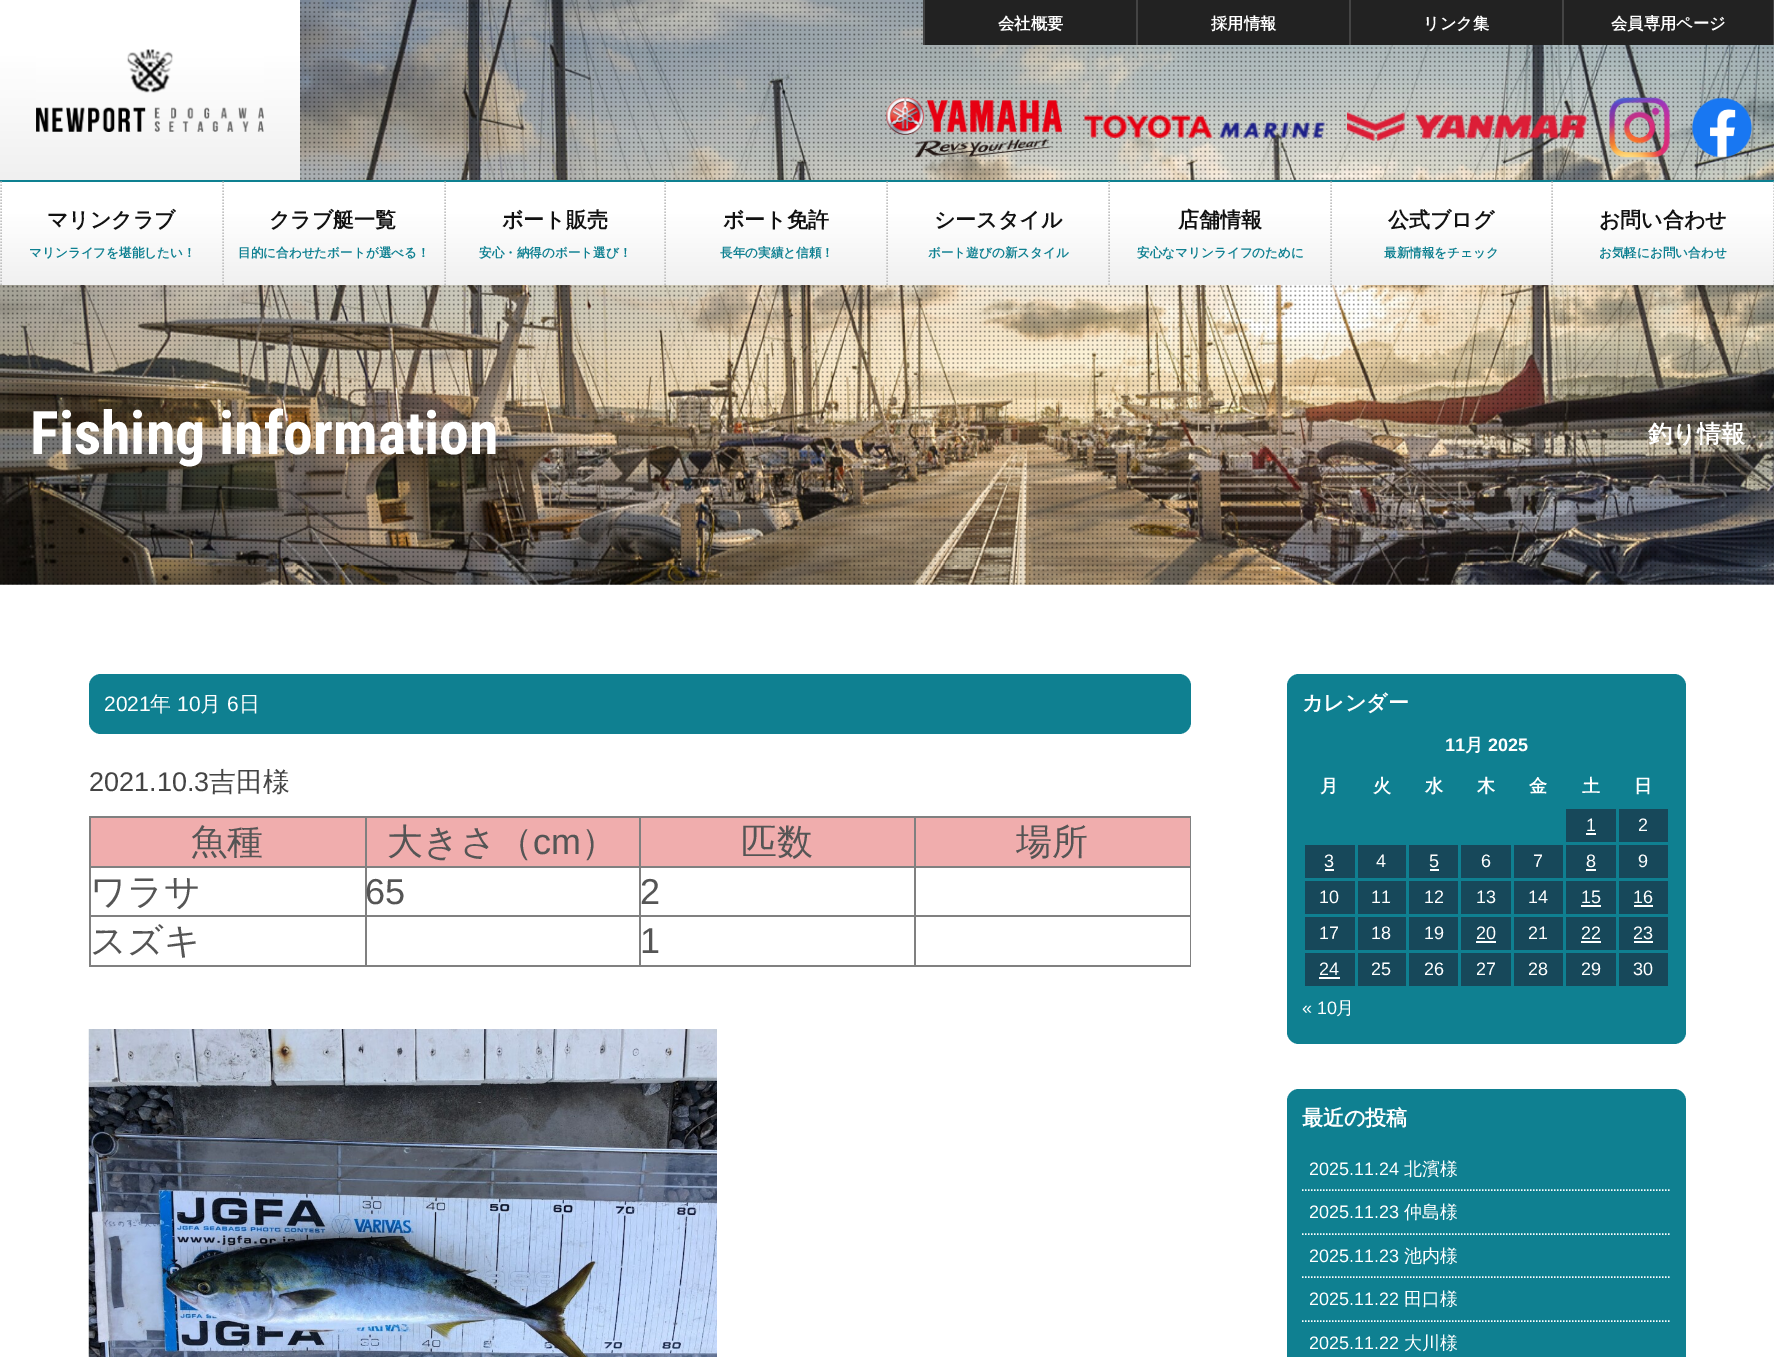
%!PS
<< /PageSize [1774 1357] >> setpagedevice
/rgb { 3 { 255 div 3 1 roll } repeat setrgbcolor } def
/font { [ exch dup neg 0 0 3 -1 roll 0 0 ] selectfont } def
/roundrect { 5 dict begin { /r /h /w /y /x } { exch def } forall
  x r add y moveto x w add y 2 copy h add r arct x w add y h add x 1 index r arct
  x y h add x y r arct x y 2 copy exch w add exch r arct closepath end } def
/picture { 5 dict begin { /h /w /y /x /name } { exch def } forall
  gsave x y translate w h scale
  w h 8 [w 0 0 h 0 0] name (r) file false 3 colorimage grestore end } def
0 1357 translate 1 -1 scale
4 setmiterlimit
255 255 255 rgb
0 0 1774 1357 rectfill
(img/1.rgb) 0 0 1774 585 picture
(img/2.rgb) 0 2 1774 583 picture
gsave 0 0 moveto 300 0 lineto 300 180 lineto 0 180 lineto closepath clip newpath
<< /ShadingType 2 /ColorSpace /DeviceRGB /Coords [150 0 150 180] /Extend [true true] /Function << /FunctionType 3 /Domain [0 1] /Functions [<< /FunctionType 2 /Domain [0 1] /C0 [1 1 1] /C1 [1 1 1] /N 1 >> << /FunctionType 2 /Domain [0 1] /C0 [1 1 1] /C1 [0.941 0.941 0.941] /N 1 >>] /Bounds [0.3] /Encode [0 1 0 1] >> >> shfill grestore
(img/3.rgb) 36 49 228 83 picture
[
  [925 0 848 45 34 34 34]
  [923 0 2 45 68 68 68]
  [1136 0 2 45 68 68 68]
  [1349 0 2 45 68 68 68]
  [1773 0 1 45 68 68 68]
  [1562 0 2 45 68 68 68]
] { aload pop rgb rectfill } forall
(img/4.rgb) 886 97 176 61 picture
(img/5.rgb) 1084 115 241 23 picture
(img/6.rgb) 1347 112 240 29 picture
(img/7.rgb) 1609 97 61 61 picture
(img/8.rgb) 1692 97 60 61 picture
gsave 0 182 moveto 1774 182 lineto 1774 285 lineto 0 285 lineto closepath clip newpath
<< /ShadingType 2 /ColorSpace /DeviceRGB /Coords [887 181 887 285] /Extend [true true] /Function << /FunctionType 3 /Domain [0 1] /Functions [<< /FunctionType 2 /Domain [0 1] /C0 [1 1 1] /C1 [1 1 1] /N 1 >> << /FunctionType 2 /Domain [0 1] /C0 [1 1 1] /C1 [0.941 0.941 0.941] /N 1 >>] /Bounds [0.3] /Encode [0 1 0 1] >> >> shfill grestore
14 128 145 rgb
0 180 1774 2 rectfill
192 192 192 rgb
1.5 setlinewidth
[1.5 1.5] 0 setdash
1774 181.5 moveto 1774 285 lineto stroke
1 181.5 moveto 1 285 lineto stroke
223 181.5 moveto 223 285 lineto stroke
445 181.5 moveto 445 285 lineto stroke
665 181.5 moveto 665 285 lineto stroke
887 181.5 moveto 887 285 lineto stroke
1109 181.5 moveto 1109 285 lineto stroke
1331 181.5 moveto 1331 285 lineto stroke
1552 181.5 moveto 1552 285 lineto stroke
15 128 145 rgb
89 674 1102 60 12 roundrect fill
[
  [89 816 1102 2 128 128 128]
  [1190 816 1 150 128 128 128]
  [89 965 1102 2 128 128 128]
  [89 816 2 150 128 128 128]
  [91 818 1099 48 240 173 173]
  [914 866 277 2 128 128 128]
  [914 915 277 2 128 128 128]
  [914 915 2 51 128 128 128]
  [639 915 276 2 128 128 128]
  [914 866 2 51 128 128 128]
  [639 866 276 2 128 128 128]
  [639 915 2 51 128 128 128]
  [365 915 276 2 128 128 128]
  [639 866 2 51 128 128 128]
  [365 866 276 2 128 128 128]
  [365 915 2 51 128 128 128]
  [89 915 277 2 128 128 128]
  [365 866 2 51 128 128 128]
  [89 866 277 2 128 128 128]
  [365 816 2 51 128 128 128]
  [639 816 2 51 128 128 128]
  [914 816 2 51 128 128 128]
] { aload pop rgb rectfill } forall
(img/9.rgb) 88 1029 629 328 picture
15 128 145 rgb
1287 674 399 370 12 roundrect fill
[
  [1566 809 50 33 23 72 90]
  [1586 833 10 2 255 255 255]
  [1619 809 49 33 23 72 90]
  [1305 845 50 33 23 72 90]
  [1325 869 9 2 255 255 255]
  [1358 845 48 33 23 72 90]
  [1409 845 49 33 23 72 90]
  [1430 869 9 2 255 255 255]
  [1461 845 50 33 23 72 90]
  [1514 845 49 33 23 72 90]
  [1566 845 50 33 23 72 90]
  [1586 869 10 2 255 255 255]
  [1619 845 49 33 23 72 90]
  [1305 881 50 33 23 72 90]
  [1358 881 48 33 23 72 90]
  [1409 881 49 33 23 72 90]
  [1461 881 50 33 23 72 90]
  [1514 881 49 33 23 72 90]
  [1566 881 50 33 23 72 90]
  [1581 905 20 2 255 255 255]
  [1619 881 49 33 23 72 90]
  [1634 905 19 2 255 255 255]
  [1305 917 50 33 23 72 90]
  [1358 917 48 33 23 72 90]
  [1409 917 49 33 23 72 90]
  [1461 917 50 33 23 72 90]
  [1476 941 20 2 255 255 255]
  [1514 917 49 33 23 72 90]
  [1566 917 50 33 23 72 90]
  [1581 941 20 2 255 255 255]
  [1619 917 49 33 23 72 90]
  [1634 941 19 2 255 255 255]
  [1305 953 50 33 23 72 90]
  [1319 977 21 2 255 255 255]
  [1358 953 48 33 23 72 90]
  [1409 953 49 33 23 72 90]
  [1461 953 50 33 23 72 90]
  [1514 953 49 33 23 72 90]
  [1566 953 50 33 23 72 90]
  [1619 953 49 33 23 72 90]
] { aload pop rgb rectfill } forall
15 128 145 rgb
1287 1089 399 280 12 roundrect fill
255 255 255 rgb
1302 1190 moveto 1671 1190 lineto stroke
1302 1234 moveto 1671 1234 lineto stroke
1302 1277 moveto 1671 1277 lineto stroke
1302 1321 moveto 1671 1321 lineto stroke
/WenQuanYiZenHei-Bold 16.25 font
[
  [(会社概要) 998 29]
  [(採用情報) 1211 29]
  [(リンク集) 1423 29]
  [(会員専用ページ) 1611 29]
] { aload pop moveto show } forall
/WenQuanYiZenHei-Bold 21 font
17 17 17 rgb
47 227 moveto (マリンクラブ) show
/WenQuanYiZenHei-Bold 12.6 font
14 128 145 rgb
29 257 moveto (マリンライフを堪能したい！) show
/WenQuanYiZenHei-Bold 21 font
17 17 17 rgb
269 227 moveto (クラブ艇一覧) show
/WenQuanYiZenHei-Bold 12.6 font
14 128 145 rgb
238 257 moveto (目的に合わせたボートが選べる！) show
/WenQuanYiZenHei-Bold 21 font
17 17 17 rgb
502 227 moveto (ボート販売) show
/WenQuanYiZenHei-Bold 12.6 font
14 128 145 rgb
479 257 moveto (安心・納得のボート選び！) show
/WenQuanYiZenHei-Bold 21 font
17 17 17 rgb
723 227 moveto (ボート免許) show
/WenQuanYiZenHei-Bold 12.6 font
14 128 145 rgb
720 257 moveto (長年の実績と信頼！) show
/WenQuanYiZenHei-Bold 21 font
17 17 17 rgb
934 227 moveto (シースタイル) show
/WenQuanYiZenHei-Bold 12.6 font
14 128 145 rgb
928 257 moveto (ボート遊びの新スタイル) show
/WenQuanYiZenHei-Bold 21 font
17 17 17 rgb
1178 227 moveto (店舗情報) show
/WenQuanYiZenHei-Bold 12.6 font
14 128 145 rgb
1137 257 moveto (安心なマリンライフのために) show
/WenQuanYiZenHei-Bold 21 font
17 17 17 rgb
1388 227 moveto (公式ブログ) show
/WenQuanYiZenHei-Bold 12.6 font
14 128 145 rgb
1384 257 moveto (最新情報をチェック) show
/WenQuanYiZenHei-Bold 21 font
17 17 17 rgb
1599 227 moveto (お問い合わせ) show
/WenQuanYiZenHei-Bold 12.6 font
14 128 145 rgb
1599 257 moveto (お気軽にお問い合わせ) show
/RobotoCondensed-Bold 60 font
255 255 255 rgb
30 454 moveto (Fishing information) show
/WenQuanYiZenHei-Bold 24 font
1648 442 moveto (釣り情報) show
/LiberationSans-Regular 21 font
104 711 moveto (2021) show
/WenQuanYiZenHei-Medium 21 font
150 711 moveto (年) show
/LiberationSans-Regular 21 font
177 711 moveto (10) show
/WenQuanYiZenHei-Medium 21 font
200 711 moveto (月) show
/LiberationSans-Regular 21 font
227 711 moveto (6) show
/WenQuanYiZenHei-Medium 21 font
239 711 moveto (日) show
/LiberationSans-Regular 27 font
68 68 68 rgb
89 791 moveto (2021.10.3) show
/WenQuanYiZenHei-Medium 27 font
209 791 moveto (吉田様) show
/WenQuanYiZenHei-Medium 36 font
85 85 85 rgb
191 854 moveto (魚種) show
387 854 moveto (大きさ（) show
/LiberationSans-Regular 36 font
533 854 moveto (cm) show
/WenQuanYiZenHei-Medium 36 font
[
  [(）) 581 854]
  [(匹数) 741 854]
  [(場所) 1016 854]
  [(ワラサ) 90 904]
] { aload pop moveto show } forall
/LiberationSans-Regular 36 font
365 904 moveto (65) show
640 904 moveto (2) show
/WenQuanYiZenHei-Medium 36 font
90 953 moveto (スズキ) show
/LiberationSans-Regular 36 font
640 953 moveto (1) show
/WenQuanYiZenHei-Bold 21 font
255 255 255 rgb
1302 710 moveto (カレンダー) show
/LiberationSans-Bold 18 font
1445 751 moveto (11) show
/WenQuanYiZenHei-Bold 18 font
1465 751 moveto (月) show
/LiberationSans-Bold 18 font
1488 751 moveto (2025) show
/WenQuanYiZenHei-Bold 18 font
[
  [(月) 1320 792]
  [(火) 1373 792]
  [(水) 1425 792]
  [(木) 1477 792]
  [(金) 1529 792]
  [(土) 1582 792]
  [(日) 1634 792]
] { aload pop moveto show } forall
/LiberationSans-Regular 18 font
[
  [(1) 1586 831]
  [(2) 1638 831]
  [(3) 1324 867]
  [(4) 1376 867]
  [(5) 1429 867]
  [(6) 1481 867]
  [(7) 1533 867]
  [(8) 1586 867]
  [(9) 1638 867]
  [(10) 1319 903]
  [(11) 1371 903]
  [(12) 1424 903]
  [(13) 1476 903]
  [(14) 1528 903]
  [(15) 1581 903]
  [(16) 1633 903]
  [(17) 1319 939]
  [(18) 1371 939]
  [(19) 1424 939]
  [(20) 1476 939]
  [(21) 1528 939]
  [(22) 1581 939]
  [(23) 1633 939]
  [(24) 1319 975]
  [(25) 1371 975]
  [(26) 1424 975]
  [(27) 1476 975]
  [(28) 1528 975]
  [(29) 1581 975]
  [(30) 1633 975]
  [(« 10) 1302 1014]
] { aload pop moveto show } forall
/WenQuanYiZenHei-Medium 18 font
1336 1014 moveto (月) show
/WenQuanYiZenHei-Bold 21 font
1302 1125 moveto (最近の投稿) show
/LiberationSans-Regular 18 font
1309 1175 moveto (2025.11.24) show
/WenQuanYiZenHei-Medium 18 font
1404 1175 moveto (北濱様) show
/LiberationSans-Regular 18 font
1309 1218 moveto (2025.11.23) show
/WenQuanYiZenHei-Medium 18 font
1404 1218 moveto (仲島様) show
/LiberationSans-Regular 18 font
1309 1262 moveto (2025.11.23) show
/WenQuanYiZenHei-Medium 18 font
1404 1262 moveto (池内様) show
/LiberationSans-Regular 18 font
1309 1305 moveto (2025.11.22) show
/WenQuanYiZenHei-Medium 18 font
1404 1305 moveto (田口様) show
/LiberationSans-Regular 18 font
1309 1349 moveto (2025.11.22) show
/WenQuanYiZenHei-Medium 18 font
1404 1349 moveto (大川様) show
showpage
